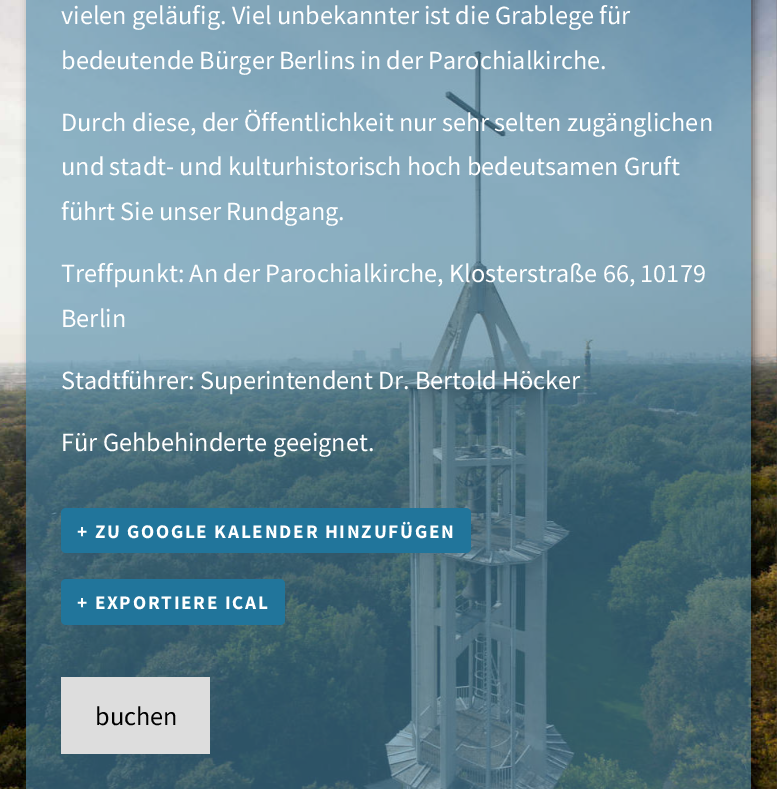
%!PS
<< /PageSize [777 789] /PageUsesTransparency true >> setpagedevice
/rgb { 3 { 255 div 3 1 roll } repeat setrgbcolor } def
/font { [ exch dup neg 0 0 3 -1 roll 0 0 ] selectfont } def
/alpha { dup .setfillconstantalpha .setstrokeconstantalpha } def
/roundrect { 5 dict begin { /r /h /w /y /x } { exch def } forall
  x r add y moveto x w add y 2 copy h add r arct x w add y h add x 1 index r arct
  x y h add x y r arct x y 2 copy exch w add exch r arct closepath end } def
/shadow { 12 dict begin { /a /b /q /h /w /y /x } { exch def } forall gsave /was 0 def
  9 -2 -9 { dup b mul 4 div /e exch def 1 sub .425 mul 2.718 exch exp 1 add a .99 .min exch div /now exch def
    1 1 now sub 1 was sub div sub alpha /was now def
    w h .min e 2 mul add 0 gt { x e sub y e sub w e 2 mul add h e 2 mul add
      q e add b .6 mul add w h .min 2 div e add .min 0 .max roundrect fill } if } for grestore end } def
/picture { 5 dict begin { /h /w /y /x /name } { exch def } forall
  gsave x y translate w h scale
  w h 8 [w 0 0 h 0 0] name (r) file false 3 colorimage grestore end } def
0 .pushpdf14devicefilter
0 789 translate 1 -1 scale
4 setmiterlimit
255 255 255 rgb
0 0 777 789 rectfill
(img/1.rgb) 0 0 777 789 picture
gsave
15 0 moveto 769 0 lineto 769 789 lineto 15 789 lineto closepath 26 -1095 moveto 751 -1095 lineto 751 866 lineto 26 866 lineto closepath eoclip newpath
0 0 0 rgb
30 -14 724 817 0 4.5 0.5 shadow
grestore
0.6 alpha
75 137 170 rgb
26 0 725 789 rectfill
1 alpha
33 117 155 rgb
61 508 410 45 5 roundrect fill
61 579 224 46 5 roundrect fill
221 221 221 rgb
61 677 149 77 rectfill
/SourceSansPro-Regular 26.25 font
255 255 255 rgb
[
  [(vielen geläufig. Viel unbekannter ist die Grablege für) 61 24]
  [(bedeutende Bürger Berlins in der Parochialkirche.) 61 69]
  [(Durch diese, der Öffentlichkeit nur sehr selten zugänglichen) 61 131]
  [(und stadt- und kulturhistorisch hoch bedeutsamen Gruft) 61 175]
  [(führt Sie unser Rundgang.) 61 220]
  [(Treffpunkt: An der Parochialkirche, Klosterstraße 66, 10179) 61 282]
  [(Berlin) 61 327]
  [(Stadtführer: Superintendent Dr. Bertold Höcker) 61 389]
  [(Für Gehbehinderte geeignet.) 61 451]
] { aload pop moveto show } forall
/SourceSansPro-Bold 19.25 font
77 538 moveto 1.75 0 (+ ZU GOOGLE KALENDER HINZUFÜGEN) ashow
77 609 moveto 1.75 0 (+ EXPORTIERE ICAL) ashow
/SourceSansPro-Regular 26.25 font
0 0 0 rgb
95 725 moveto (buchen) show
.poppdf14devicefilter showpage
